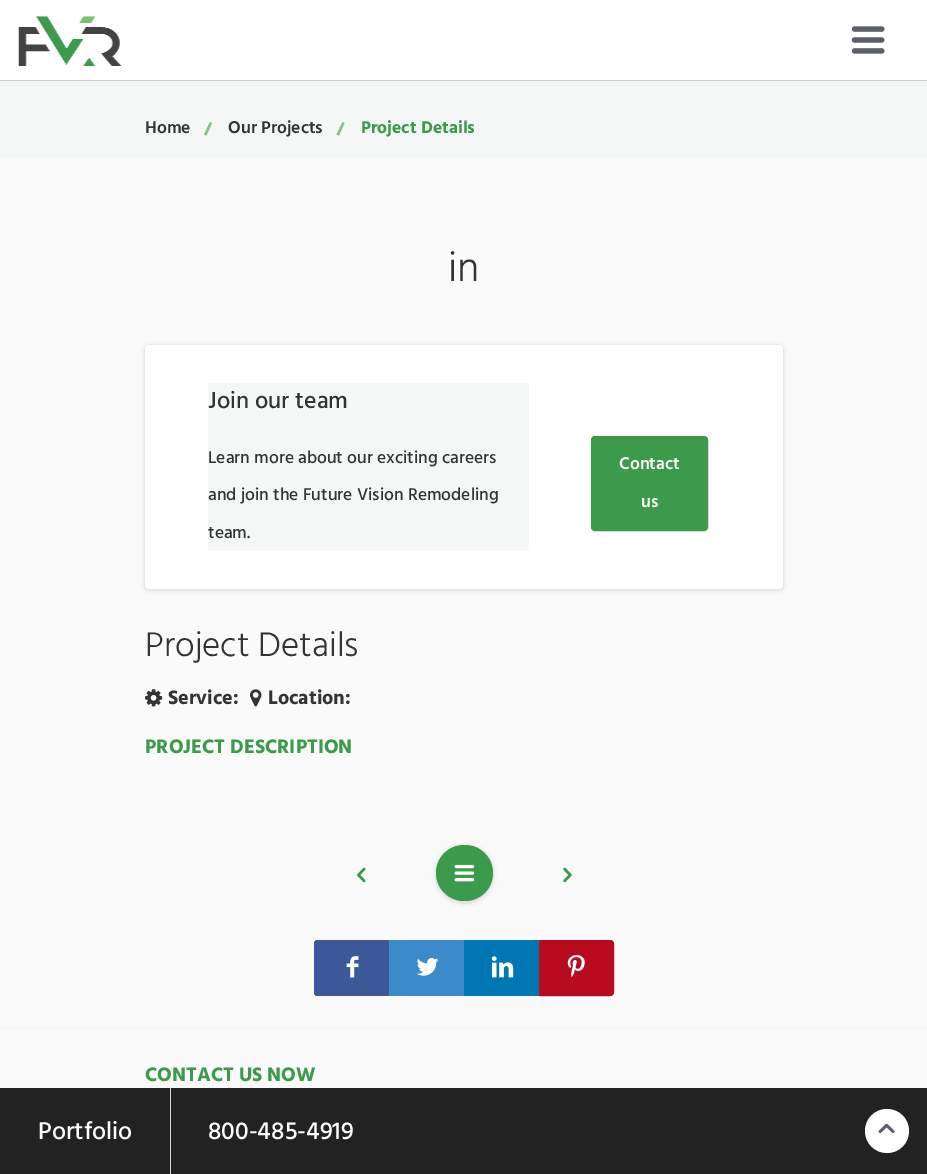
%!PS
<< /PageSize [927 1174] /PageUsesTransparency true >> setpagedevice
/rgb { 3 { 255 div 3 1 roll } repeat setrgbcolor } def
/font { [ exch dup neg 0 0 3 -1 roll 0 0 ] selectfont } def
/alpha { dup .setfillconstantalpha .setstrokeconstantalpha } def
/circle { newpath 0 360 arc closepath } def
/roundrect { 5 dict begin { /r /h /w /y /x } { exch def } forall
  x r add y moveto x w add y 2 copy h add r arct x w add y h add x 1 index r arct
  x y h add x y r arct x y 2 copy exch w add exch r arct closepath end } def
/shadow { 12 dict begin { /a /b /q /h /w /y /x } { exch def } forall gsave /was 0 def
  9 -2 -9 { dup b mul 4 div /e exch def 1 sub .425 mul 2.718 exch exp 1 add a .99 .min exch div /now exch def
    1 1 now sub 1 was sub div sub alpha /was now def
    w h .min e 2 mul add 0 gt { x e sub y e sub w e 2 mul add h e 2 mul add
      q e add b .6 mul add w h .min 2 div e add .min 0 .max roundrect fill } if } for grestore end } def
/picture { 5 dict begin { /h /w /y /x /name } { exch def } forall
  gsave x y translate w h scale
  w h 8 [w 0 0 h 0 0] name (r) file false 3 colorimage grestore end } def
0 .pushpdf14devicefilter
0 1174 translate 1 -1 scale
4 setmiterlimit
244 247 246 rgb
0 0 927 1174 rectfill
255 255 255 rgb
0 0 927 80 rectfill
204 204 204 rgb
0 80 927 1 rectfill
(img/1.rgb) 18 16 104 50 picture
(img/2.rgb) 851 26 34 28 picture
133 192 143 rgb
210 122 moveto 212 123 lineto 206.5 135.5 lineto 204 134.5 lineto closepath fill
342.5 122 moveto 344.5 123 lineto 339 135.5 lineto 336.5 134.5 lineto closepath fill
250 250 250 rgb
0 158 927 869 rectfill
0 0 0 rgb
145 346 638 244 4 2.5 0.15 shadow
255 255 255 rgb
145 345 638 244 4 roundrect fill
244 247 246 rgb
208 383 321 168 rectfill
59 155 74 rgb
591.5 436.5 116 94 3.5 roundrect gsave fill grestore
stroke
(img/3.rgb) 145 689 18 18 picture
(img/4.rgb) 250 689 12 18 picture
(img/5.rgb) 357 867 9 16 picture
0 0 0 rgb
436 846 57 57 28.5 2.5 0.15 shadow
59 155 74 rgb
436 845 57 56 28 roundrect fill
(img/6.rgb) 454 864 21 18 picture
(img/7.rgb) 563 867 9 16 picture
59 89 152 rgb
318 940 moveto 389 940 lineto 389 996 lineto 318 996 lineto 316 996 314 994 314 992 curveto 314 944 lineto 314 942 316 940 318 940 curveto closepath fill
318 940 moveto 389 940 lineto 389 996 lineto 318 996 lineto 315 996 314 995 314 992 curveto 314 944 lineto 314 942 315 940 318 940 curveto closepath 318 941 moveto 389 941 lineto 389 995 lineto 318 995 lineto 316 995 315 994 315 992 curveto 315 944 lineto 315 942 316 941 318 941 curveto closepath eofill
(img/8.rgb) 346 956 13 22 picture
59 138 202 rgb
389 940 75 56 rectfill
(img/9.rgb) 416 958 23 18 picture
0 119 181 rgb
464 940 75 56 rectfill
(img/10.rgb) 491 956 23 22 picture
185 11 32 rgb
539.5 940.5 moveto 610 940.5 lineto 612 940.5 613.5 942 613.5 944 curveto 613.5 992 lineto 613.5 994 612 995.5 610 995.5 curveto 539.5 995.5 lineto closepath gsave fill grestore
stroke
(img/11.rgb) 567 955 18 22 picture
[
  [0 1028 927 60 250 250 250]
  [0 1088 927 86 34 34 34]
  [170 1088 1 86 218 218 218]
] { aload pop rgb rectfill } forall
255 255 255 rgb
887 1131 22 circle fill
(img/12.rgb) 878 1123 17 11 picture
/HindMadurai-SemiBold 17.5 font
51 51 51 rgb
145 133 moveto (Home) show
228 133 moveto (Our Projects) show
/HindMadurai-Bold 17.5 font
59 155 74 rgb
361 133 moveto (Project Details) show
/HindMadurai-Light 42 font
51 51 51 rgb
448 281 moveto (in) show
/HindMadurai-Medium 23.75 font
208 408 moveto (Join our team) show
/HindMadurai-Medium 17.5 font
[
  [(Learn more about our exciting careers) 208 463]
  [(and join the Future Vision Remodeling) 208 500]
  [(team.) 208 538]
] { aload pop moveto show } forall
/HindMadurai-SemiBold 17.5 font
255 255 255 rgb
619 469 moveto (Contact) show
641 507 moveto (us) show
/HindMadurai-Light 35 font
51 51 51 rgb
145 656 moveto (Project Details) show
/HindMadurai-Bold 20 font
168 704 moveto (Service:) show
268 704 moveto (Location:) show
59 155 74 rgb
145 753 moveto (PROJECT DESCRIPTION) show
145 1081 moveto (CONTACT US NOW) show
/HindMadurai-Medium 25 font
255 255 255 rgb
38 1139 moveto (Portfolio) show
208 1139 moveto (800-485-4919) show
.poppdf14devicefilter showpage
